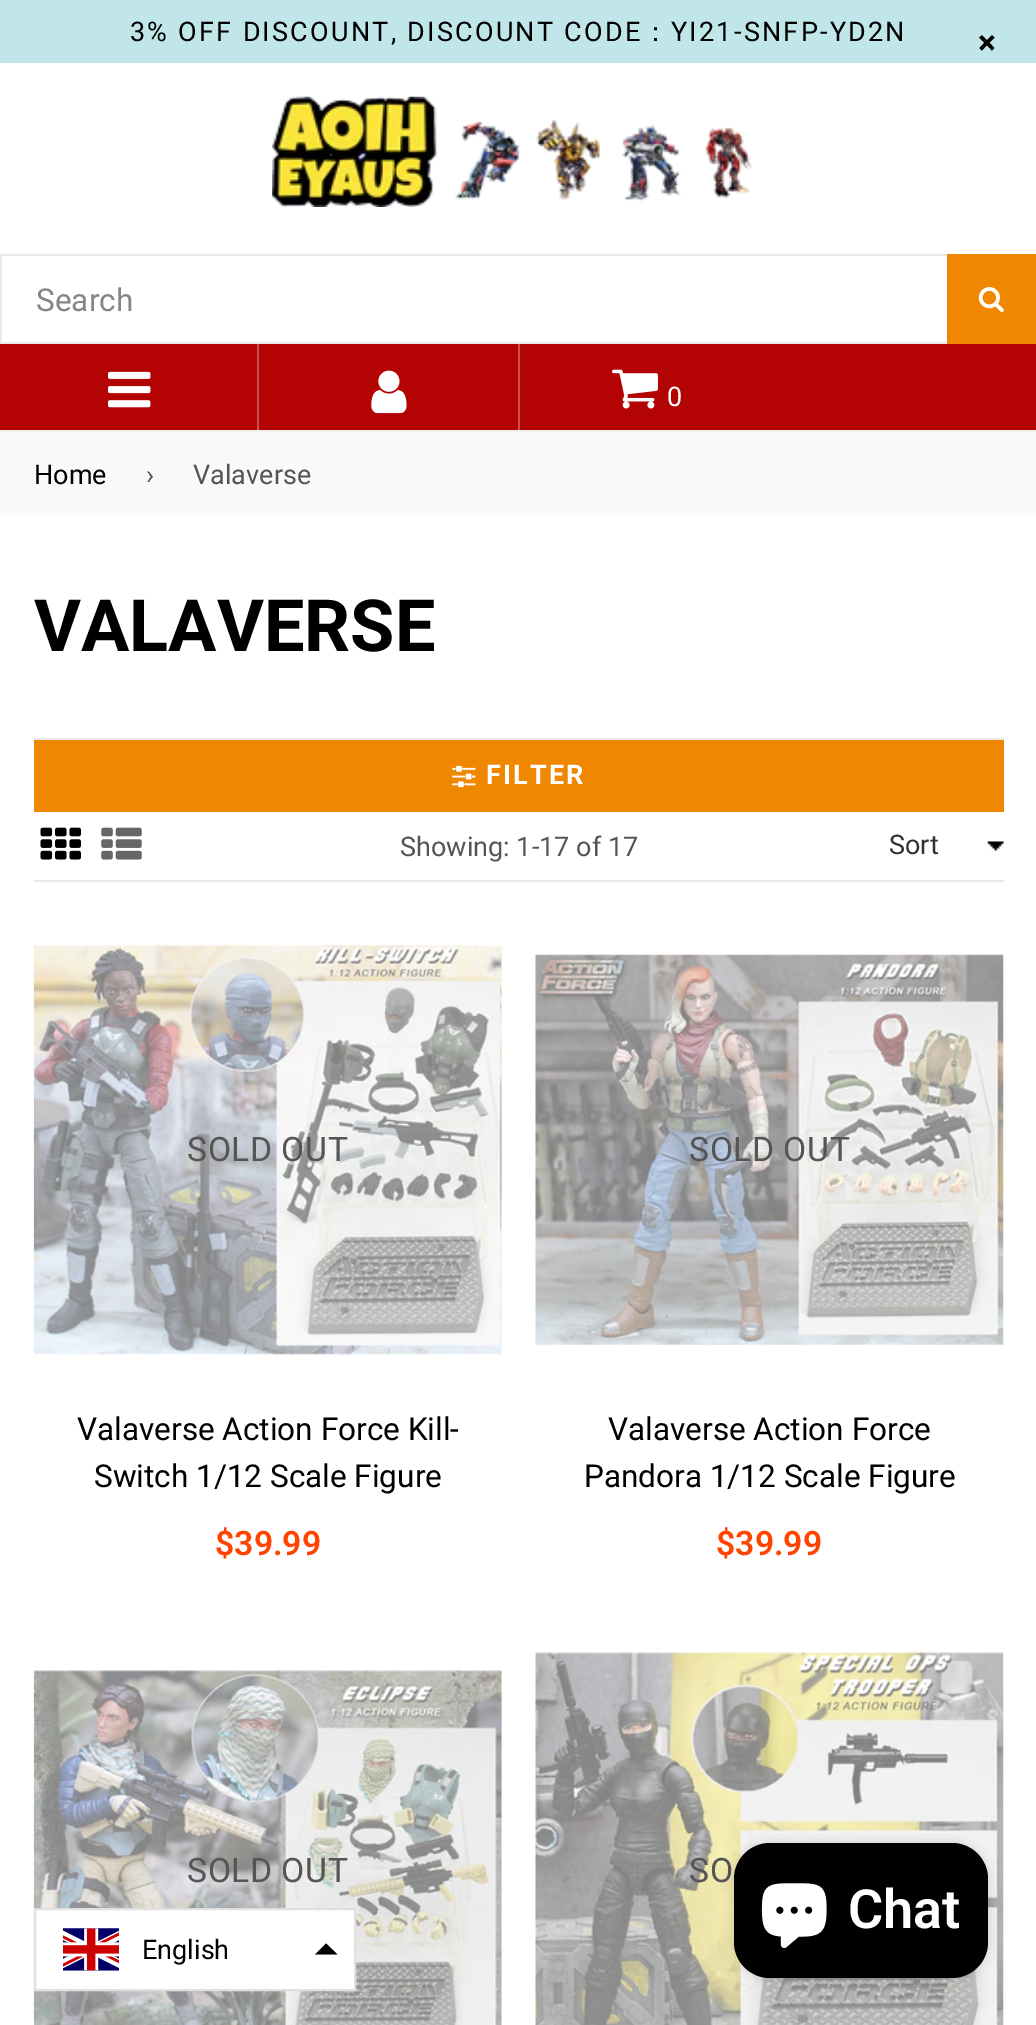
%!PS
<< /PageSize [1036 2025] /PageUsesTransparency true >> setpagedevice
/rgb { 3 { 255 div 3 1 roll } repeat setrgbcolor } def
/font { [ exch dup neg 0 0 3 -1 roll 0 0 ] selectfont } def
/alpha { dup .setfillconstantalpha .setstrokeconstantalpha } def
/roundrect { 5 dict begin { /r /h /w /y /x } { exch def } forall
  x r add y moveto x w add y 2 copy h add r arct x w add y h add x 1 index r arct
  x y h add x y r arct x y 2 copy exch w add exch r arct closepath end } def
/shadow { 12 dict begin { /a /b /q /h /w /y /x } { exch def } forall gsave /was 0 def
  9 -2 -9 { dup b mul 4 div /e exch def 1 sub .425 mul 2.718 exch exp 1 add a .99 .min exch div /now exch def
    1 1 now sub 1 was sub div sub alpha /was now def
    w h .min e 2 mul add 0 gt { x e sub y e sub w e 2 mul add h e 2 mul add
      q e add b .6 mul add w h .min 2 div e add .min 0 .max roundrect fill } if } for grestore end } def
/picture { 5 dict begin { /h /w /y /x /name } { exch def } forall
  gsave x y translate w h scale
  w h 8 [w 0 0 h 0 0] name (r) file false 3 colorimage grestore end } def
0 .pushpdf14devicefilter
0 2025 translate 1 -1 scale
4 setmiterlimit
255 255 255 rgb
0 0 1036 2025 rectfill
193 230 233 rgb
0 0 1036 63 rectfill
(img/1.rgb) 272 96 480 111 picture
[
  [0 254 947 2 232 233 235]
  [0 342 947 2 232 233 235]
  [0 254 2 90 232 233 235]
  [947 254 89 90 239 135 0]
] { aload pop rgb rectfill } forall
(img/2.rgb) 978 287 26 26 picture
[
  [0 344 1036 86 179 3 3]
  [518 344 2 88 202 79 79]
  [257 344 2 88 202 79 79]
  [0 430 1036 2 238 238 238]
  [518 430 2 2 243 243 243]
  [257 430 2 2 243 243 243]
] { aload pop rgb rectfill } forall
(img/3.rgb) 108 371 43 37 picture
(img/4.rgb) 371 370 36 44 picture
(img/5.rgb) 612 369 46 40 picture
[
  [0 432 1036 83 249 249 249]
  [34 738 970 2 232 233 235]
  [34 880 970 2 232 233 235]
  [34 740 970 72 239 135 0]
] { aload pop rgb rectfill } forall
(img/6.rgb) 452 765 24 23 picture
(img/7.rgb) 40 827 41 33 picture
(img/8.rgb) 101 827 41 33 picture
(img/9.rgb) 987 841 17 10 picture
(img/10.rgb) 33 944 469 412 picture
(img/11.rgb) 535 954 469 392 picture
(img/12.rgb) 33 1670 469 355 picture
(img/13.rgb) 535 1652 469 373 picture
0 0 0 rgb
734 1843 254 135 36 5.5 0.15 shadow
734 1843 254 135 36 roundrect fill
(img/14.rgb) 761 1883 66 65 picture
255 255 255 rgb
35 1909 moveto 355 1909 lineto 355 1990 lineto 35 1990 lineto closepath gsave fill grestore
224 224 224 rgb
2 setlinewidth
stroke
(img/15.rgb) 63 1928 56 43 picture
0 0 0 rgb
315 1954.5 moveto 326 1943.5 lineto 337.5 1954.5 lineto closepath eofill
/Roboto-Regular 27 font
130 41 moveto 2.25 0 (3% OFF DISCOUNT, DISCOUNT CODE) ashow
/WenQuanYiZenHei-Medium 27 font
642 41 moveto 2.25 0 (：) ashow
/Roboto-Regular 27 font
671 41 moveto 2.25 0 (YI21-SNFP-YD2N) ashow
/Roboto-Bold 33.75 font
978 54 moveto (×) show
/Roboto-Regular 31.5 font
133 133 133 rgb
36 311 moveto (Search) show
/Roboto-Regular 27 font
255 255 255 rgb
667 406 moveto 2 0 (0) ashow
0 0 0 rgb
34 484 moveto (Home) show
85 85 85 rgb
146 484 moveto (›) show
193 484 moveto (Valaverse) show
/Roboto-Bold 72 font
0 0 0 rgb
34 651 moveto (VALAVERSE) show
/Roboto-Bold 27 font
255 255 255 rgb
486 784 moveto 2.25 0 (FILTER) ashow
/Roboto-Regular 27 font
85 85 85 rgb
400 856 moveto (Showing: 1-17 of 17) show
51 51 51 rgb
889 854 moveto (Sort) show
/Roboto-Regular 33.75 font
85 85 85 rgb
187 1161 moveto 0.5 0 (SOLD OUT) ashow
/Roboto-Regular 31.5 font
0 0 0 rgb
77 1440 moveto (Valaverse Action Force Kill-) show
94 1487 moveto (Switch 1/12 Scale Figure) show
/Roboto-SemiBold 33.75 font
255 68 0 rgb
215 1555 moveto ($39.99) show
/Roboto-Regular 33.75 font
85 85 85 rgb
689 1161 moveto 0.5 0 (SOLD OUT) ashow
/Roboto-Regular 31.5 font
0 0 0 rgb
608 1440 moveto (Valaverse Action Force) show
584 1487 moveto (Pandora 1/12 Scale Figure) show
/Roboto-SemiBold 33.75 font
255 68 0 rgb
716 1555 moveto ($39.99) show
/Roboto-Regular 33.75 font
85 85 85 rgb
187 1882 moveto 0.5 0 (SOLD OUT) ashow
689 1882 moveto 0.5 0 (SO) ashow
/Roboto-SemiBold 54 font
255 255 255 rgb
848 1928 moveto (Chat) show
/Roboto-Regular 27 font
0 0 0 rgb
142 1959 moveto (English) show
.poppdf14devicefilter showpage
